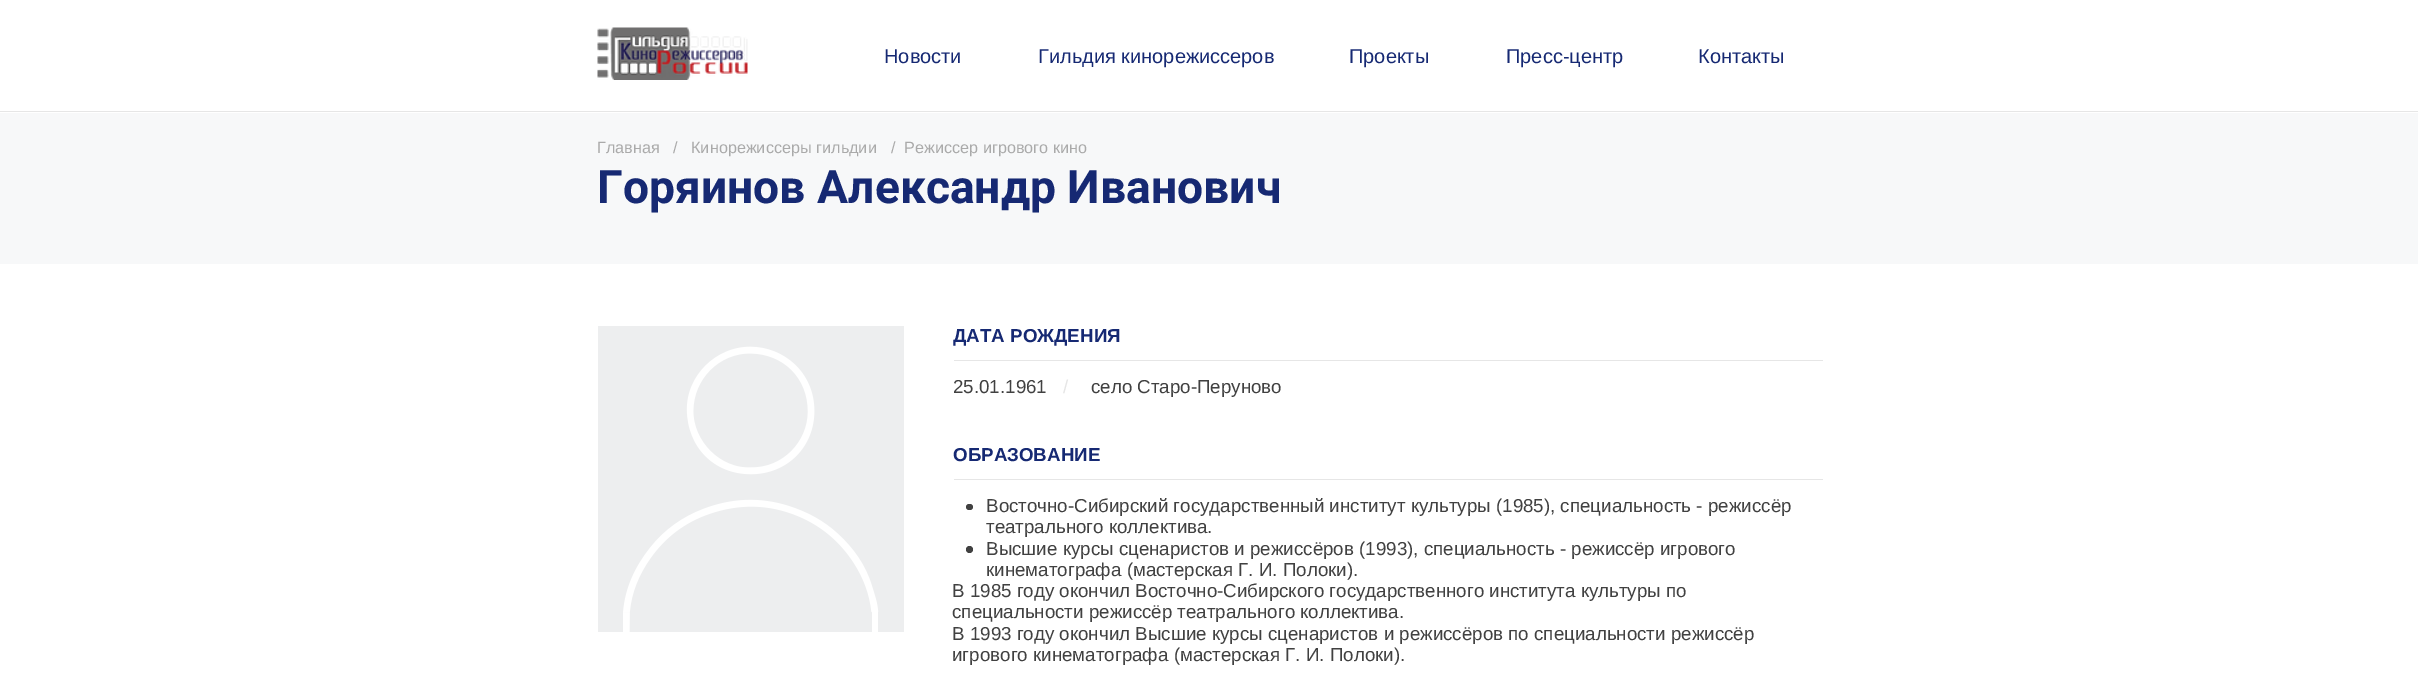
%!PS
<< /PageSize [2418 684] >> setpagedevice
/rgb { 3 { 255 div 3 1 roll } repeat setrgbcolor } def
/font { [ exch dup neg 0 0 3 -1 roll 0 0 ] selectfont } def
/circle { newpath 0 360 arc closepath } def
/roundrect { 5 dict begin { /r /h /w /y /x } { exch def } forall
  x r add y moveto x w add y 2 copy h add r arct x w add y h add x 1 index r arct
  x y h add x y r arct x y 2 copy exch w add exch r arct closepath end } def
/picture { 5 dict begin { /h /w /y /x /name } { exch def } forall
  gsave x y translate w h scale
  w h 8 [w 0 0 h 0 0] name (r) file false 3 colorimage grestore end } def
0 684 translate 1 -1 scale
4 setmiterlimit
255 255 255 rgb
0 0 2418 684 rectfill
(img/1.rgb) 597 27 151 53 picture
230 230 230 rgb
0 111 2418 1 rectfill
247 248 249 rgb
0 113 2418 151 rectfill
(img/2.rgb) 598 326 306 306 picture
230 230 230 rgb
954 360 869 1 rectfill
954 479 869 1 rectfill
65 65 65 rgb
966 504 7 6 3 roundrect fill
969.5 549.5 3.5 circle fill
/LiberationSans-Regular 20 font
22 41 115 rgb
[
  [(Новости) 884 63]
  [(Гильдия кинорежиссеров) 1038 63]
  [(Проекты) 1349 63]
  [(Пресс-центр) 1506 63]
  [(Контакты) 1698 63]
] { aload pop moveto show } forall
/LiberationSans-Regular 16.25 font
170 170 170 rgb
[
  [(Главная) 597 153]
  [(/) 673 153]
  [(Кинорежиссеры гильдии) 691 153]
  [(/) 891 153]
  [(Режиссер игрового кино) 904 153]
] { aload pop moveto show } forall
/Roboto-Bold 46.25 font
22 41 115 rgb
597 203 moveto (Горяинов Александр Иванович) show
/LiberationSans-Bold 18.75 font
953 342 moveto (ДАТА РОЖДЕНИЯ) show
/LiberationSans-Regular 18.75 font
65 65 65 rgb
953 393 moveto (25.01.1961) show
230 230 230 rgb
1063 393 moveto (/) show
65 65 65 rgb
1091 393 moveto (село Старо-Перуново) show
/LiberationSans-Bold 18.75 font
22 41 115 rgb
953 461 moveto (ОБРАЗОВАНИЕ) show
/LiberationSans-Regular 18.75 font
65 65 65 rgb
[
  [(Восточно-Сибирский государственный институт культуры \(1985\), специальность - режиссёр) 986 512]
  [(театрального коллектива.) 986 533]
  [(Высшие курсы сценаристов и режиссёров \(1993\), специальность - режиссёр игрового) 986 555]
  [(кинематографа \(мастерская Г. И. Полоки\).) 986 576]
  [(В 1985 году окончил Восточно-Сибирского государственного института культуры по) 952 597]
  [(специальности режиссёр театрального коллектива.) 952 618]
  [(В 1993 году окончил Высшие курсы сценаристов и режиссёров по специальности режиссёр) 952 640]
  [(игрового кинематографа \(мастерская Г. И. Полоки\).) 952 661]
] { aload pop moveto show } forall
showpage
